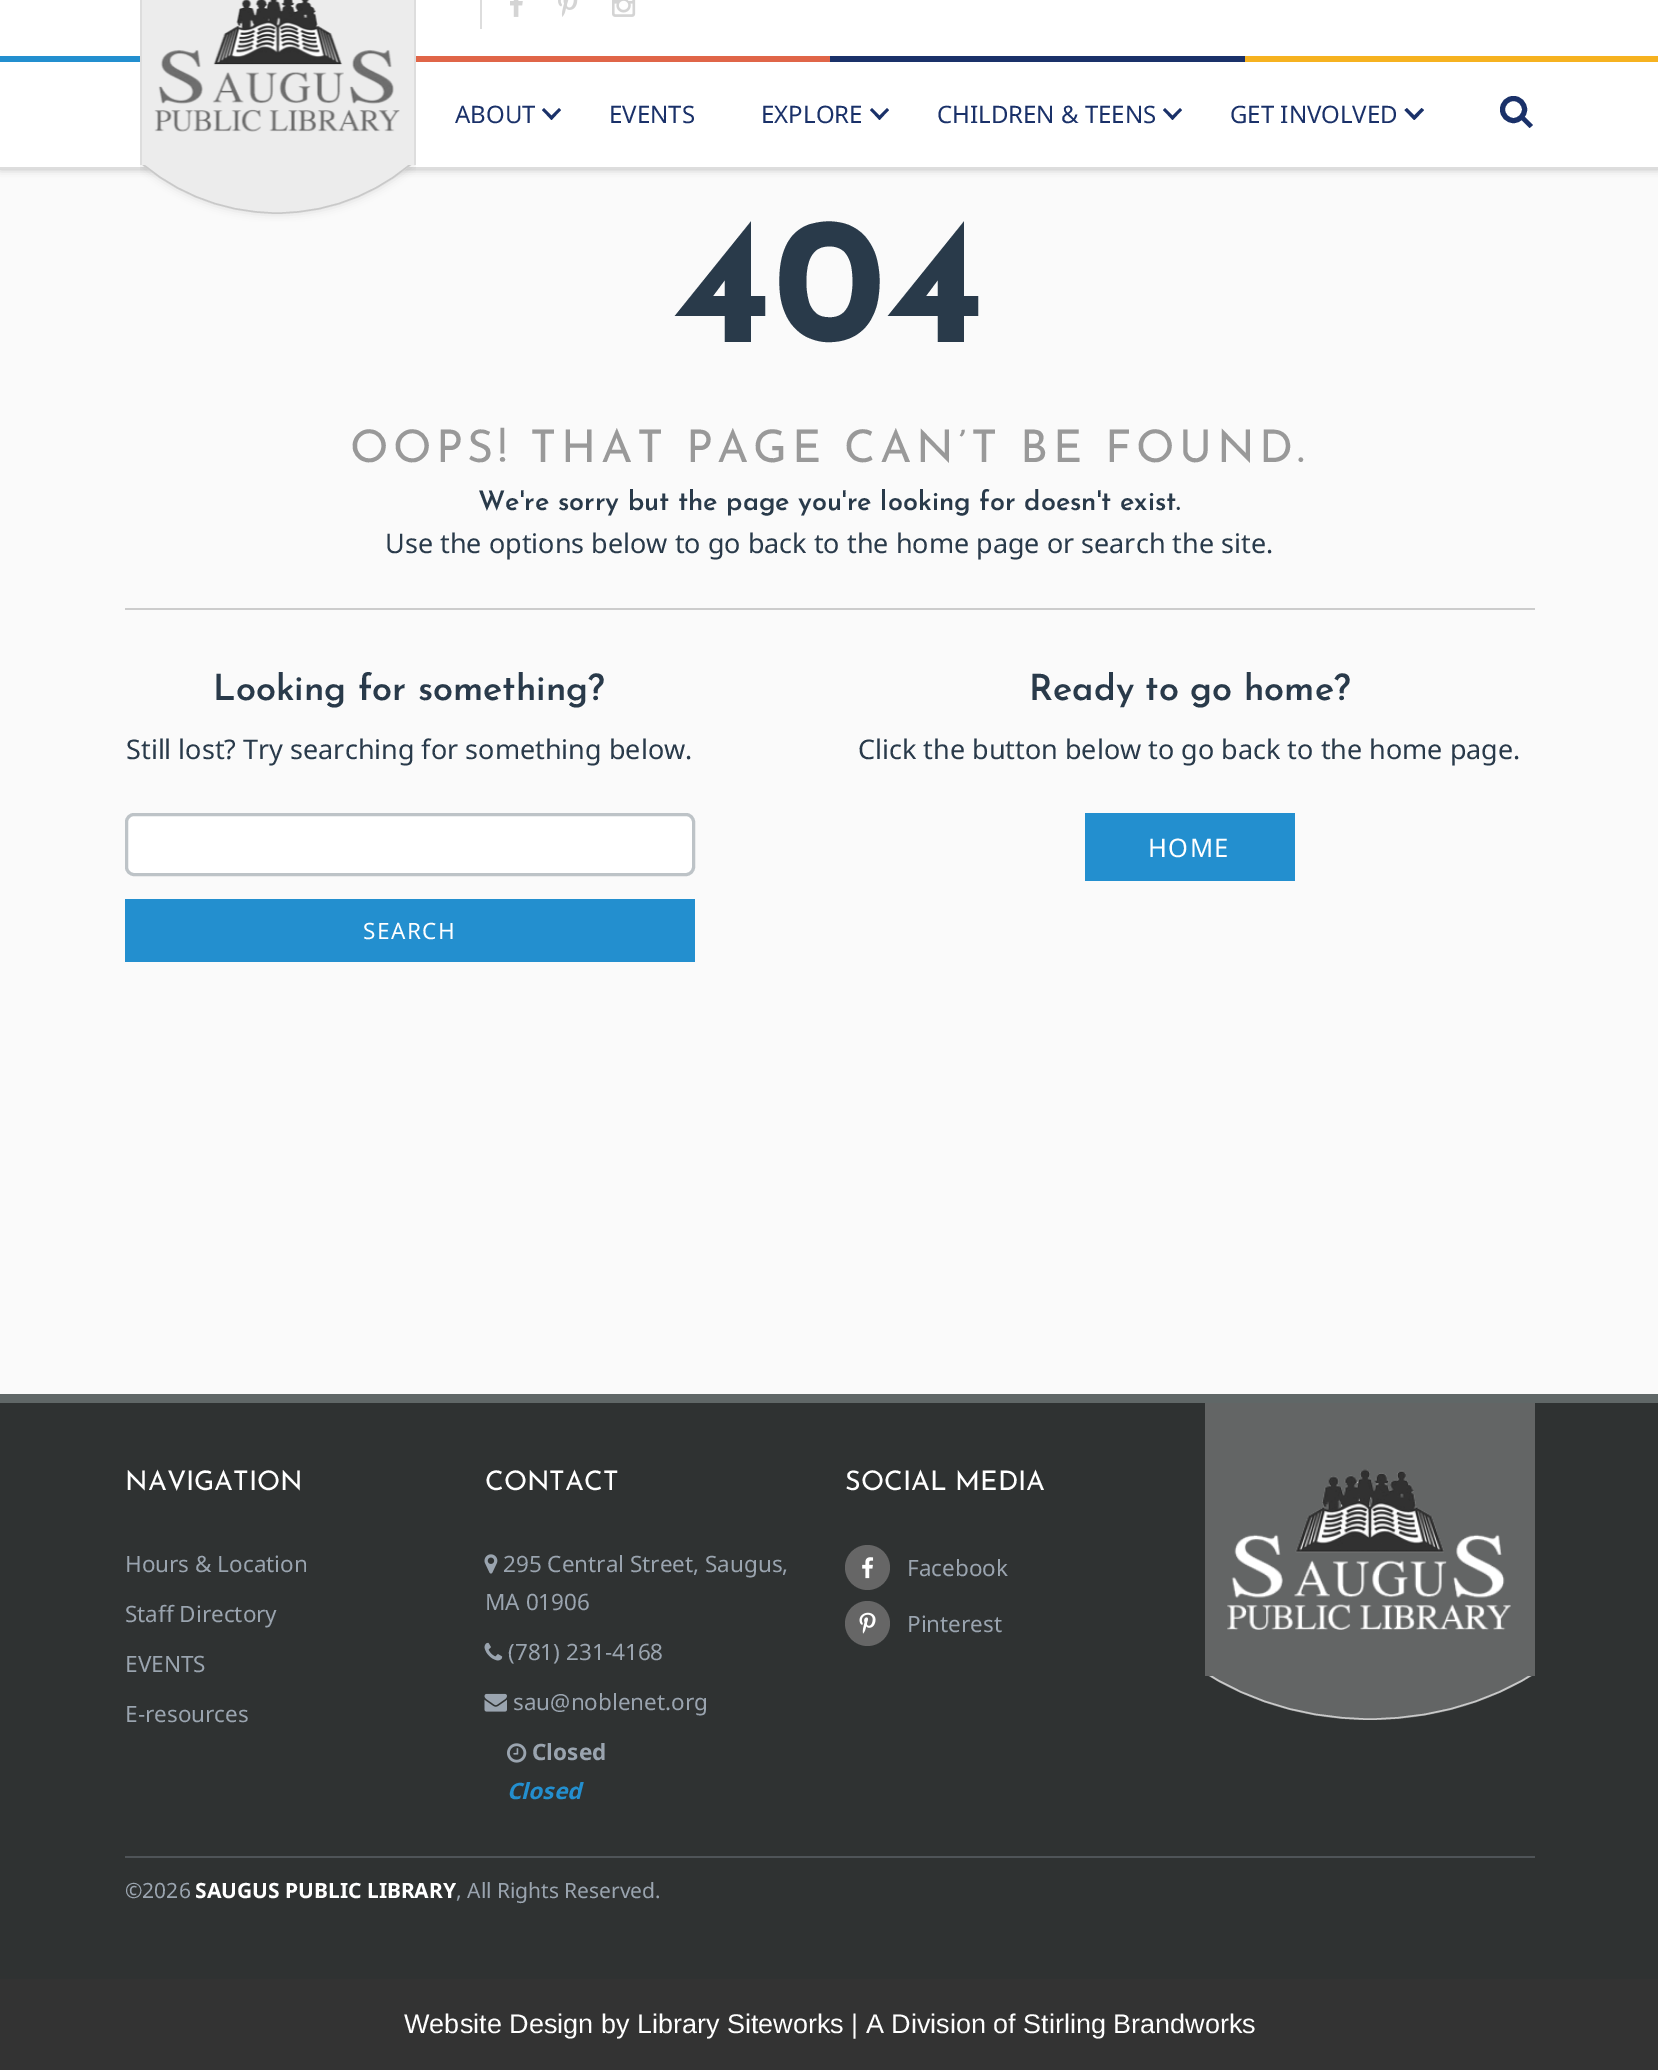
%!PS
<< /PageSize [1658 2070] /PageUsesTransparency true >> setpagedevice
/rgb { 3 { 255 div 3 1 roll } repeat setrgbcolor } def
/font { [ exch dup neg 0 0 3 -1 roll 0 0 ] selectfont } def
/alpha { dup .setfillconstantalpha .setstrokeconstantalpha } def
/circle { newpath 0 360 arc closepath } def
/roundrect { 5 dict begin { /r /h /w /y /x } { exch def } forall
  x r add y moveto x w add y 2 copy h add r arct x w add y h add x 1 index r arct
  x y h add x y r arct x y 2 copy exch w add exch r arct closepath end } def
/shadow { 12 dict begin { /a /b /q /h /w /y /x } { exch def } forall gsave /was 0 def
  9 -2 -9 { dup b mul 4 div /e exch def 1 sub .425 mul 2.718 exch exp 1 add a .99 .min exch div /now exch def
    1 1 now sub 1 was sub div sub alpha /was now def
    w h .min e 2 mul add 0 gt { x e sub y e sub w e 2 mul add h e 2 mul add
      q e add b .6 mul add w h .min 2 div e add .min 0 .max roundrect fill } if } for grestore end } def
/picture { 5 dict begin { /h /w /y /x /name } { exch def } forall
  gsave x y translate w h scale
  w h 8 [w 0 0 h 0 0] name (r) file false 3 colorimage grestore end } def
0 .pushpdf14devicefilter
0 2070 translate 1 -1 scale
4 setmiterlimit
250 250 250 rgb
0 0 1658 2070 rectfill
0 0 0 rgb
0 -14 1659 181 0 4.5 0.4 shadow
[
  [0 0 1658 167 255 255 255]
  [0 167 1658 2 221 221 221]
  [480 0 2 29 221 221 221]
] { aload pop rgb rectfill } forall
(img/1.rgb) 510 0 13 17 picture
(img/2.rgb) 558 0 20 17 picture
(img/3.rgb) 612 0 24 17 picture
[
  [0 56 140 6 35 143 207]
  [416 56 414 6 224 101 72]
  [830 56 415 6 26 49 105]
  [1245 56 413 6 246 178 32]
] { aload pop rgb rectfill } forall
gsave
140 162 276 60 rectclip
0 0 0 rgb
68 -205 418 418 209 4.5 0.15 shadow
grestore
gsave
140 162 276 60 rectclip
236 236 236 rgb
277 214 moveto 161 214 68 120 68 5 curveto 68 -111 161 -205 277 -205 curveto 392 -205 486 -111 486 5 curveto 486 120 392 214 277 214 curveto closepath fill
0.15 alpha
0 0 0 rgb
1.5 setlinewidth
277 213 moveto 161.5 213 68 119.5 68 4.5 curveto 68 -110.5 161.5 -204 277 -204 curveto 392 -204 485 -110.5 485 4.5 curveto 485 119.5 392 213 277 213 curveto closepath stroke
grestore
[
  [142 0 272 165 236 236 236]
  [414 0 2 165 221 221 221]
  [140 0 2 165 221 221 221]
] { aload pop rgb rectfill } forall
(img/4.rgb) 154 0 246 132 picture
26 49 105 rgb
544 108 moveto 553.5 117.5 lineto 551.5 120 lineto 542 110 lineto closepath fill
549.5 117.5 moveto 559 108 lineto 561 110 lineto 551.5 120 lineto closepath fill
872 108 moveto 881.5 117.5 lineto 879.5 120 lineto 870 110 lineto closepath fill
877.5 117.5 moveto 887 108 lineto 889 110 lineto 879.5 120 lineto closepath fill
1165 108 moveto 1174.5 117.5 lineto 1172.5 120 lineto 1163 110 lineto closepath fill
1170.5 117.5 moveto 1180 108 lineto 1182 110 lineto 1172.5 120 lineto closepath fill
1407 108 moveto 1416.5 117.5 lineto 1414 120 lineto 1404.5 110 lineto closepath fill
1412 117.5 moveto 1421.5 108 lineto 1424 110 lineto 1414.5 120 lineto closepath fill
5 setlinewidth
1513.5 109.5 11 circle stroke
1524.5 116.5 moveto 1533 125 lineto 1529.5 128 lineto 1521 119.5 lineto closepath fill
204 204 204 rgb
125 608 1410 2 rectfill
255 255 255 rgb
126.5 814.5 567 60 7.5 roundrect gsave fill grestore
189 195 199 rgb
3 setlinewidth
stroke
[
  [125 899 570 63 35 143 207]
  [1085 813 210 68 35 143 207]
  [0 1403 1658 576 47 50 50]
  [0 1394 1658 9 96 103 103]
] { aload pop rgb rectfill } forall
(img/5.rgb) 484 1554 14 20 picture
(img/6.rgb) 484 1642 19 19 picture
(img/7.rgb) 484 1693 23 19 picture
(img/8.rgb) 507 1743 20 20 picture
102 102 102 rgb
867.5 1567.5 22.5 circle fill
(img/9.rgb) 862 1557 12 22 picture
867.5 1623.5 22.5 circle fill
(img/10.rgb) 859 1612 17 22 picture
99 101 101 rgb
1205 1403 330 273 rectfill
(img/11.rgb) 1227 1469 284 161 picture
gsave
1175 1676 360 45 rectclip
1370 1720 moveto 1220 1720 1098 1619 1098 1495 curveto 1098 1371 1220 1270 1370 1270 curveto 1521 1270 1642 1371 1642 1495 curveto 1642 1619 1521 1720 1370 1720 curveto closepath fill
0.65 alpha
255 255 255 rgb
1.5 setlinewidth
1370 1719 moveto 1220.5 1719 1099 1618.5 1099 1495 curveto 1099 1371 1220.5 1270.5 1370 1270.5 curveto 1520 1270.5 1642 1371 1642 1495 curveto 1642 1618.5 1520 1719 1370 1719 curveto closepath stroke
grestore
79 84 88 rgb
125 1856 1410 2 rectfill
51 51 51 rgb
0 1979 1658 91 rectfill
/NotoSans-Regular 24 font
26 49 105 rgb
[
  [(ABOUT) 455 123]
  [(EVENTS) 609 123]
  [(EXPLORE) 761 123]
  [(CHILDREN & TEENS) 937 123]
  [(GET INVOLVED) 1230 123]
] { aload pop moveto show } forall
/JosefinSans-Bold 180 font
41 58 74 rgb
673 342 moveto (404) show
/JosefinSans-Regular 45 font
153 153 153 rgb
350 462 moveto 4.5 0 (OOPS! THAT PAGE CAN’T BE FOUND.) ashow
/JosefinSans-SemiBold 27 font
41 58 74 rgb
478 510 moveto (We're sorry but the page you're looking for doesn't exist.) show
/NotoSans-Regular 27 font
385 553 moveto (Use the options below to go back to the home page or search the site.) show
/JosefinSans-SemiBold 36 font
213 700 moveto (Looking for something?) show
/NotoSans-Regular 27 font
126 759 moveto (Still lost? Try searching for something below.) show
/NotoSans-Regular 22.5 font
255 255 255 rgb
363 939 moveto 1.5 0 (SEARCH) ashow
/JosefinSans-SemiBold 36 font
41 58 74 rgb
1029 700 moveto (Ready to go home?) show
/NotoSans-Regular 27 font
858 759 moveto (Click the button below to go back to the home page.) show
/NotoSans-Regular 25.5 font
255 255 255 rgb
1148 857 moveto 1.5 0 (HOME) ashow
/JosefinSans-Regular 27 font
125 1490 moveto (NAVIGATION) show
/NotoSans-Regular 22.5 font
154 164 175 rgb
[
  [(Hours & Location) 125 1572]
  [(Staff Directory) 125 1622]
  [(EVENTS) 125 1672]
  [(E-resources) 125 1722]
] { aload pop moveto show } forall
/JosefinSans-Regular 27 font
255 255 255 rgb
485 1490 moveto (CONTACT) show
/NotoSans-Regular 22.5 font
154 164 175 rgb
[
  [(295 Central Street, Saugus,) 503 1572]
  [(MA 01906) 485 1610]
  [(\(781\) 231-4168) 508 1660]
  [(sau@noblenet.org) 513 1710]
] { aload pop moveto show } forall
/NotoSans-Bold 22.5 font
532 1760 moveto (Closed) show
/NotoSans-BoldItalic 22.5 font
35 143 207 rgb
507 1799 moveto (Closed) show
/JosefinSans-Regular 27 font
255 255 255 rgb
845 1490 moveto (SOCIAL MEDIA) show
/NotoSans-Regular 22.5 font
154 164 175 rgb
907 1576 moveto (Facebook) show
907 1632 moveto (Pinterest) show
/NotoSans-Regular 21 font
125 1898 moveto (©2026) show
/NotoSans-Bold 21 font
255 255 255 rgb
195 1898 moveto (SAUGUS PUBLIC LIBRARY) show
/NotoSans-Regular 21 font
154 164 175 rgb
456 1898 moveto (, All Rights Reserved.) show
/LiberationSans-Regular 27 font
255 255 255 rgb
404 2033 moveto (Website Design by Library Siteworks | A Division of Stirling Brandworks) show
.poppdf14devicefilter showpage
